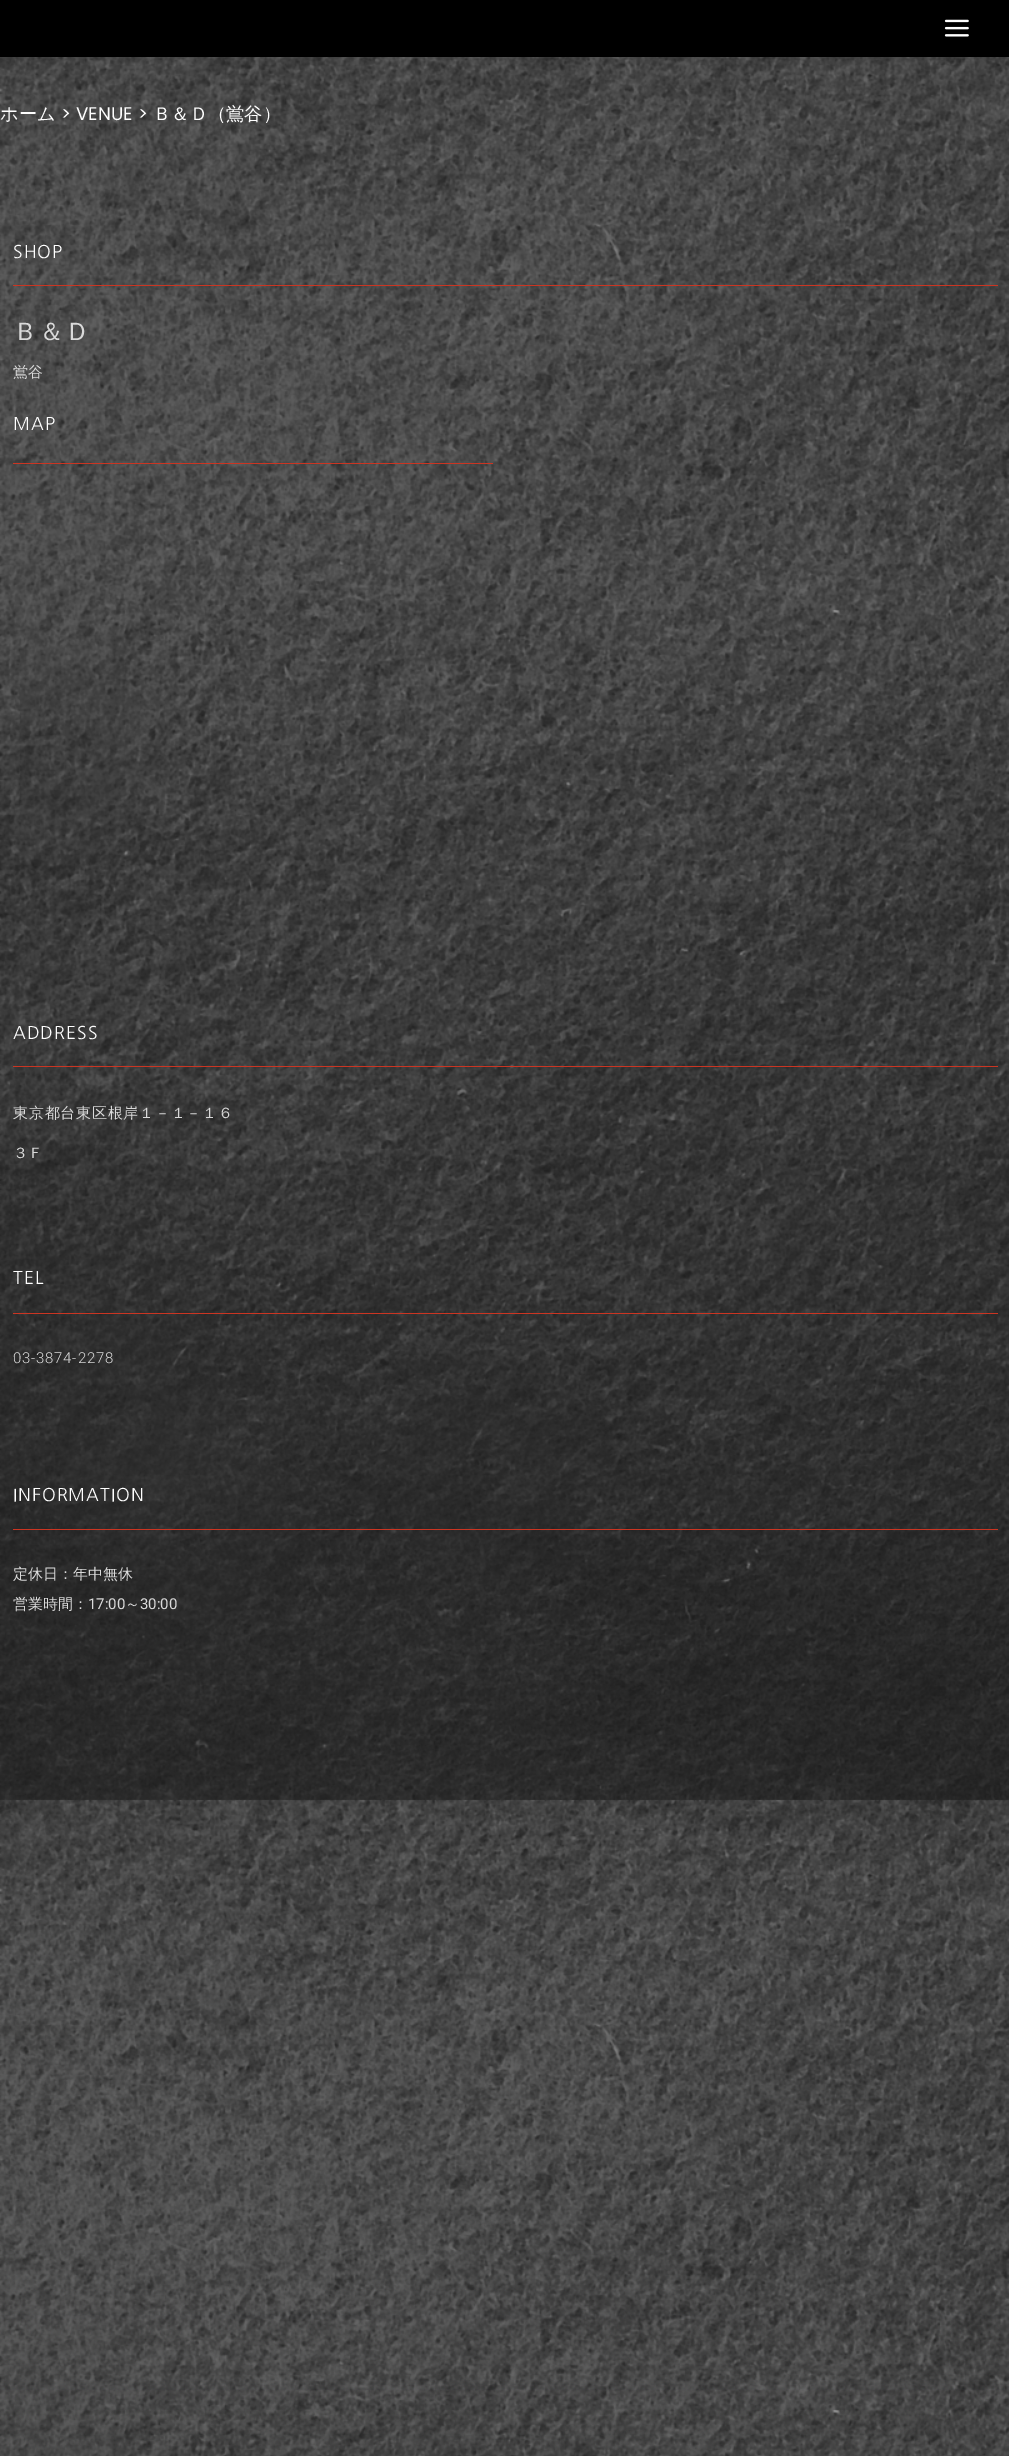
%!PS
<< /PageSize [1009 2456] >> setpagedevice
/rgb { 3 { 255 div 3 1 roll } repeat setrgbcolor } def
/font { [ exch dup neg 0 0 3 -1 roll 0 0 ] selectfont } def
/picture { 5 dict begin { /h /w /y /x /name } { exch def } forall
  gsave x y translate w h scale
  w h 8 [w 0 0 h 0 0] name (r) file false 3 colorimage grestore end } def
0 2456 translate 1 -1 scale
4 setmiterlimit
255 255 255 rgb
0 0 1009 2456 rectfill
(img/1.rgb) 0 57 1009 2399 picture
0 0 0 rgb
0 0 1009 57 rectfill
(img/2.rgb) 944 19 25 18 picture
[
  [13 285 985 1 203 53 34]
  [13 463 480 1 203 53 34]
  [13 1066 985 1 203 53 34]
  [13 1313 985 1 203 53 34]
  [13 1529 985 1 203 53 34]
] { aload pop rgb rectfill } forall
/WenQuanYiZenHei-Medium 18.25 font
255 255 255 rgb
0 120 moveto (ホーム) show
/Poppins-Regular 18.25 font
[
  [(>) 61 120]
  [(VENUE) 76 120]
  [(>) 138 120]
] { aload pop moveto show } forall
/WenQuanYiZenHei-Medium 18.25 font
153 120 moveto (Ｂ＆Ｄ（鴬谷）) show
/NanumGothic-Regular 17.5 font
13 258 moveto 1 0 (SHOP) ashow
/WenQuanYiZenHei-Medium 25 font
218 218 218 rgb
13 340 moveto 0.75 0 (Ｂ＆Ｄ) ashow
/WenQuanYiZenHei-Medium 15 font
13 377 moveto (鴬谷) show
/NanumGothic-Regular 17.5 font
255 255 255 rgb
13 430 moveto 1 0 (MAP) ashow
13 1039 moveto 1 0 (ADDRESS) ashow
/WenQuanYiZenHei-Medium 15 font
218 218 218 rgb
13 1118 moveto 0.75 0 (東京都台東区根岸１－１－１６) ashow
13 1158 moveto (３Ｆ) show
/NanumGothic-Regular 17.5 font
255 255 255 rgb
13 1284 moveto 1 0 (TEL) ashow
/Roboto-Light 15 font
218 218 218 rgb
13 1363 moveto 0.75 0 (03-3874-2278) ashow
/NanumGothic-Regular 17.5 font
255 255 255 rgb
13 1501 moveto 1 0 (INFORMATION) ashow
/WenQuanYiZenHei-Medium 15 font
218 218 218 rgb
13 1579 moveto (定休日：年中無休) show
13 1609 moveto (営業時間：) show
/Roboto-Regular 15 font
88 1609 moveto (17:00) show
/WenQuanYiZenHei-Medium 15 font
125 1609 moveto (～) show
/Roboto-Regular 15 font
140 1609 moveto (30:00) show
showpage
